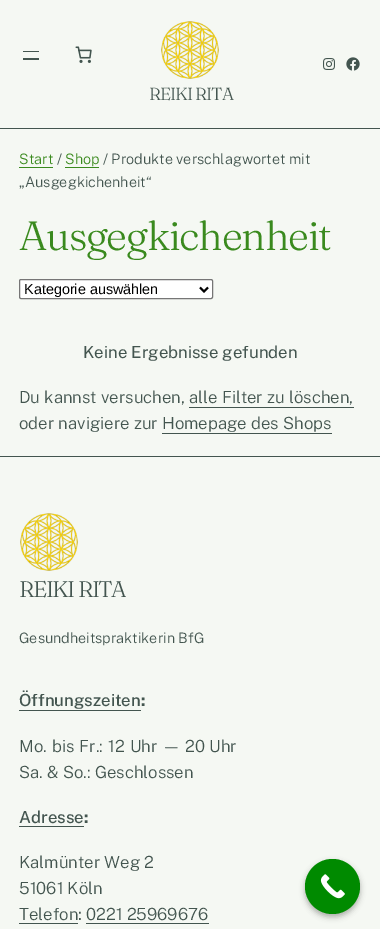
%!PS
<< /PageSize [380 929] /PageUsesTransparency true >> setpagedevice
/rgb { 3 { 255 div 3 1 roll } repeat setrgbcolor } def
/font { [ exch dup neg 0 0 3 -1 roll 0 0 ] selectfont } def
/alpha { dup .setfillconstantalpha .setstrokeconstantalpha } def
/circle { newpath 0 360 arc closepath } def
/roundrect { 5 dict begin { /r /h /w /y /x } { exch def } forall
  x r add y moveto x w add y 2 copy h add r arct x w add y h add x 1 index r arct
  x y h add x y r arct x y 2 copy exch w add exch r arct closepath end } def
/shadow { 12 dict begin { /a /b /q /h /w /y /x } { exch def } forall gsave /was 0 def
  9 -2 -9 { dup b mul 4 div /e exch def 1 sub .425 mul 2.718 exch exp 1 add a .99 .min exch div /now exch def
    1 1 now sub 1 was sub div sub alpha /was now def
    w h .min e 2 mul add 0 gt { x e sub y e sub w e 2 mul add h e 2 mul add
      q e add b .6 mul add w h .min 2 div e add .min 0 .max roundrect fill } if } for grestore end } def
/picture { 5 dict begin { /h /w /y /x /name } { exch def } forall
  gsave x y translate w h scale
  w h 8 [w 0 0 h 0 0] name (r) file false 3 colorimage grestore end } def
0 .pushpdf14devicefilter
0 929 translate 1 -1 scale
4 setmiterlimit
245 248 243 rgb
0 0 380 929 rectfill
[
  [0 128 380 1 67 85 79]
  [23 51 16 1 67 85 79]
  [23 58 16 2 67 85 79]
] { aload pop rgb rectfill } forall
(img/1.rgb) 75 46 17 17 picture
(img/2.rgb) 323 58 12 12 picture
(img/3.rgb) 346 57 14 14 picture
(img/4.rgb) 161 21 58 58 picture
58 138 30 rgb
19 167 34 1 rectfill
65 167 34 1 rectfill
255 255 255 rgb
19.5 279.5 193 19 1.5 roundrect gsave fill grestore
118 118 118 rgb
stroke
0 0 0 rgb
2 setlinewidth
200 287.5 moveto 204 291.5 lineto 208 287.5 lineto stroke
[
  [189 407 165 1 67 85 79]
  [162 433 170 1 67 85 79]
  [0 456 380 1 67 85 79]
] { aload pop rgb rectfill } forall
(img/5.rgb) 20 513 58 58 picture
[
  [19 710 122 1 67 85 79]
  [19 826 65 1 67 85 79]
  [19 923 59 1 67 85 79]
  [86 923 123 1 67 85 79]
] { aload pop rgb rectfill } forall
0 0 0 rgb
305 862 55 55 27.5 3 0.3 shadow
0 138 0 rgb
332.5 886.5 27.5 circle fill
(img/6.rgb) 320 874 25 25 picture
/Fraunces-Light 17.5 font
67 85 79 rgb
149 100 moveto -1 0 (REIKI RITA) ashow
/PublicSans-Light 14.4 font
58 138 30 rgb
19 164 moveto (Start) show
67 85 79 rgb
57 164 moveto (/) show
58 138 30 rgb
65 164 moveto (Shop) show
67 85 79 rgb
103 164 moveto (/ Produkte verschlagwortet mit) show
19 187 moveto („Ausgegkichenheit“) show
/Fraunces-Light 40.75 font
58 138 30 rgb
19 250 moveto -1.25 0 (Ausgegkichenheit) ashow
/LiberationSans-Regular 14.4 font
0 0 0 rgb
24 294 moveto (Kategorie auswählen) show
/PublicSans-Regular 16.75 font
67 85 79 rgb
83 358 moveto (Keine Ergebnisse gefunden) show
/PublicSans-Light 16.75 font
19 403 moveto (Du kannst versuchen, alle Filter zu löschen,) show
19 429 moveto (oder navigiere zur Homepage des Shops) show
/Fraunces-Light 22.5 font
19 597 moveto -1.4 0 (REIKI RITA) ashow
/PublicSans-Light 14.4 font
19 643 moveto (Gesundheitspraktikerin BfG) show
/PublicSans-Medium 16.75 font
19 706 moveto (Öffnungszeiten) show
/PublicSans-Bold 16.75 font
141 706 moveto (:) show
/PublicSans-Light 16.75 font
19 752 moveto 1 0 32 (Mo. bis Fr.: 12 Uhr —) widthshow
185 752 moveto 1 0 32 (20) widthshow
209 752 moveto 1 0 32 (Uhr) widthshow
19 778 moveto (Sa. & So.: Geschlossen) show
/PublicSans-Medium 16.75 font
19 823 moveto (Adresse) show
/PublicSans-Bold 16.75 font
84 823 moveto (:) show
/PublicSans-Light 16.75 font
[
  [(Kalmünter Weg 2) 19 868]
  [(51061 Köln) 19 894]
  [(Telefon) 19 920]
] { aload pop moveto show } forall
/PublicSans-Regular 16.75 font
78 920 moveto (:) show
/PublicSans-Light 16.75 font
86 920 moveto (0221 25969676) show
.poppdf14devicefilter showpage
